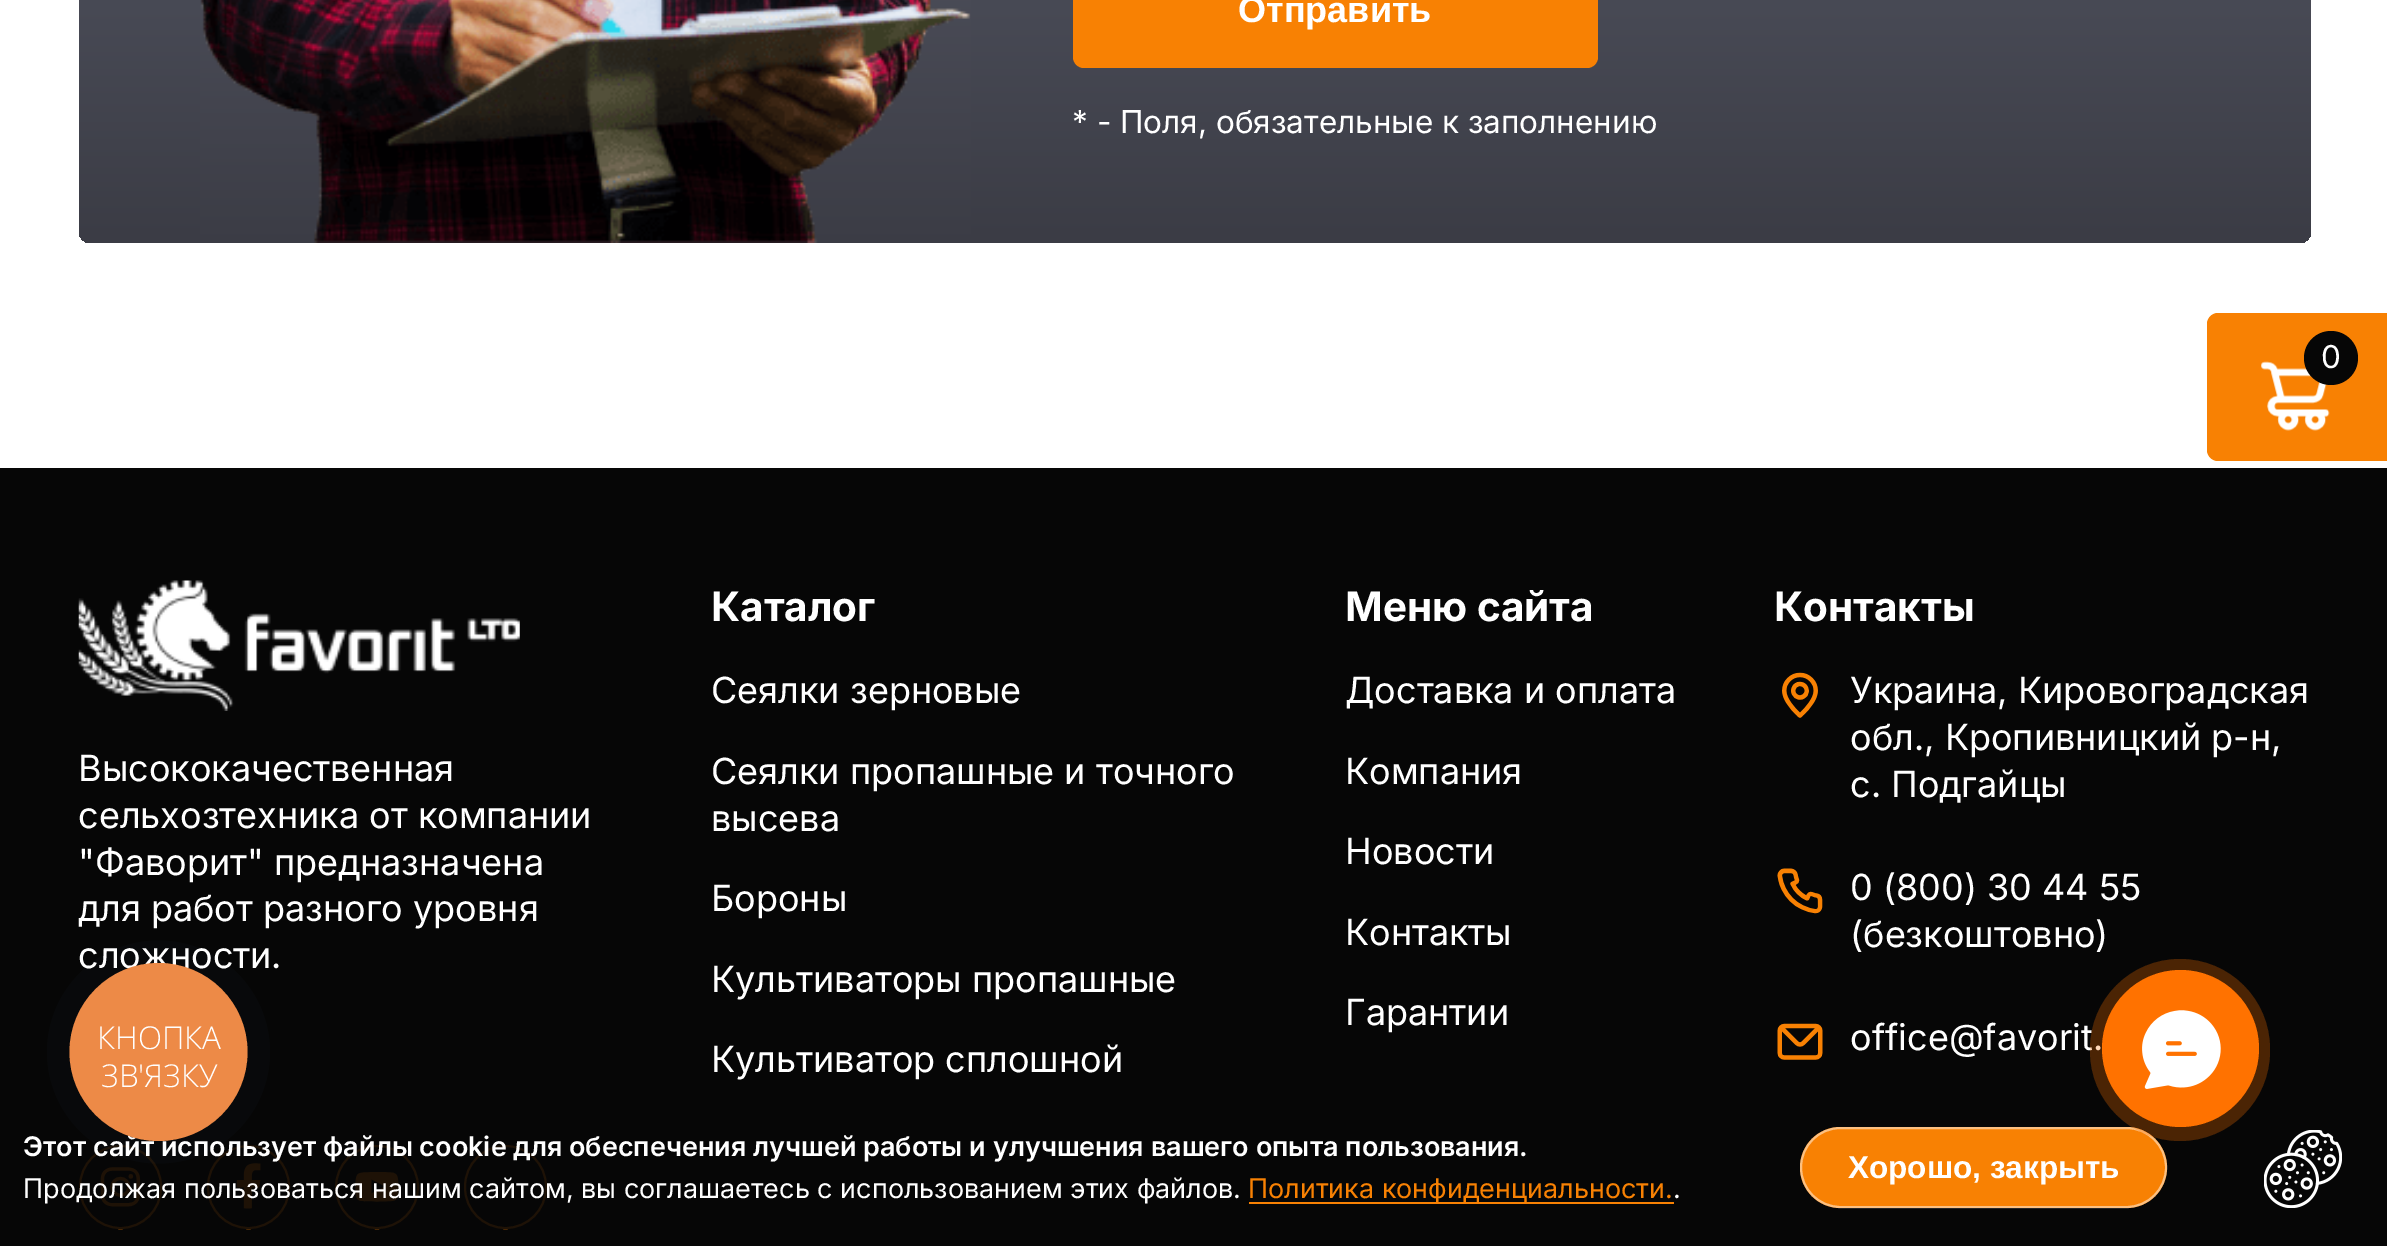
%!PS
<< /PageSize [2387 1246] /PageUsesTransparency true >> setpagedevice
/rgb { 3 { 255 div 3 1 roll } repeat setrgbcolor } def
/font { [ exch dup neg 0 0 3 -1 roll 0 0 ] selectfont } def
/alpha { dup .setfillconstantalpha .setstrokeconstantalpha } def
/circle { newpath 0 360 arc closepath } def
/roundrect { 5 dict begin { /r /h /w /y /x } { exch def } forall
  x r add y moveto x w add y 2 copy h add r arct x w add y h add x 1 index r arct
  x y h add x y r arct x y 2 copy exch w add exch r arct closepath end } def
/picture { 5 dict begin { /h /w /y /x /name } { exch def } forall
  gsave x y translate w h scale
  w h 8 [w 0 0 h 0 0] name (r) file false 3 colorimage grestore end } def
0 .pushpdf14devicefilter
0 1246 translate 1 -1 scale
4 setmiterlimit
255 255 255 rgb
0 0 2387 1246 rectfill
gsave 79 -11 2232 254 11 roundrect clip newpath
<< /ShadingType 2 /ColorSpace /DeviceRGB /Coords [1195 -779 1195 243] /Extend [true true] /Function << /FunctionType 2 /Domain [0 1] /C0 [0.455 0.467 0.533] /C1 [0.231 0.235 0.271] /N 1 >> >> shfill grestore
(img/1.rgb) 200 0 771 243 picture
248 129 3 rgb
1073 -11 525 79 11 roundrect fill
6 6 6 rgb
0 468 2387 778 rectfill
(img/5.rgb) 100 1167 41 40 picture
248 129 3 rgb
2 setlinewidth
80 1146 81 82 40.5 roundrect stroke
(img/6.rgb) 236 1163 25 46 picture
208 1146 81 82 40.5 roundrect stroke
(img/7.rgb) 355 1172 44 30 picture
377 1187 41 circle stroke
465 1146 81 82 40.5 roundrect stroke
0.9 alpha
6 6 6 rgb
79 1145 468 84 rectfill
1 alpha
248 129 3 rgb
1249 1202 425 2 rectfill
1800 1127 367 81 40.5 roundrect fill
0.5 alpha
255 255 255 rgb
1801 1128 365 79 39.5 roundrect stroke
1 alpha
(img/2.rgb) 2264 1130 78 78 picture
248 129 3 rgb
2218 313 moveto 2387 313 lineto 2387 461 lineto 2218 461 lineto 2212 461 2207 456 2207 450 curveto 2207 324 lineto 2207 318 2212 313 2218 313 curveto closepath fill
(img/3.rgb) 2261 361 69 70 picture
6 6 6 rgb
2331 358 27 circle fill
(img/4.rgb) 78 580 442 131 picture
(img/8.rgb) 1782 672 36 46 picture
(img/9.rgb) 1777 868 46 46 picture
(img/10.rgb) 1777 1023 46 37 picture
0.06 alpha
42 64 93 rgb
158.5 1052 111.5 circle fill
1 alpha
255 114 0 rgb
2180.5 1048.5 78.5 circle fill
/LiberationSans-Bold 36 font
255 255 255 rgb
1238 22 moveto (Отправить) show
/Inter-Regular 31.5 font
1072 133 moveto (* - Поля, обязательные к заполнению) show
/Inter-SemiBold 27 font
23 1156 moveto (Этот сайт использует файлы cookie для обеспечения лучшей работы и улучшения вашего опыта пользования.) show
/Inter-Regular 27 font
23 1198 moveto (Продолжая пользоваться нашим сайтом, вы соглашаетесь с использованием этих файлов.) show
248 129 3 rgb
1248 1198 moveto (Политика конфиденциальности.) show
255 255 255 rgb
1673 1198 moveto (.) show
/LiberationSans-Bold 31.5 font
1848 1178 moveto (Хорошо, закрыть) show
/Inter-Regular 31.5 font
2321 368 moveto (0) show
/Inter-Regular 36 font
[
  [(Высококачественная) 78 781]
  [(сельхозтехника от компании) 78 828]
  [("Фаворит" предназначена) 78 875]
  [(для работ разного уровня) 78 921]
  [(сложности.) 78 968]
] { aload pop moveto show } forall
/Inter-Bold 40.5 font
711 621 moveto (Каталог) show
/Inter-Regular 36 font
[
  [(Сеялки зерновые) 711 703]
  [(Сеялки пропашные и точного) 711 784]
  [(высева) 711 831]
  [(Бороны) 711 911]
  [(Культиваторы пропашные) 711 992]
  [(Культиватор сплошной) 711 1072]
] { aload pop moveto show } forall
/Inter-Bold 40.5 font
1345 621 moveto (Меню сайта) show
/Inter-Regular 36 font
[
  [(Доставка и оплата) 1345 703]
  [(Компания) 1345 784]
  [(Новости) 1345 864]
  [(Контакты) 1345 945]
  [(Гарантии) 1345 1025]
] { aload pop moveto show } forall
/Inter-Bold 40.5 font
1774 621 moveto (Контакты) show
/Inter-Regular 36 font
[
  [(Украина, Кировоградская) 1850 703]
  [(обл., Кропивницкий р-н,) 1850 750]
  [(с. Подгайцы) 1850 797]
  [(0 \(800\) 30 44 55) 1850 900]
  [(\(безкоштовно\)) 1850 947]
  [(office@favorit.) 1850 1050]
] { aload pop moveto show } forall
237 138 71 rgb
158.5 1052 89 circle fill
/OpenSans-Light 31.5 font
255 255 255 rgb
97 1049 moveto (КНОПКА) show
101 1087 moveto (ЗВ'ЯЗКУ) show
0.15 alpha
255 114 0 rgb
2090 959 180 182 90 roundrect fill
2090 959 180 182 90 roundrect fill
1 alpha
(img/11.rgb) 2142 1010 79 79 picture
.poppdf14devicefilter showpage
